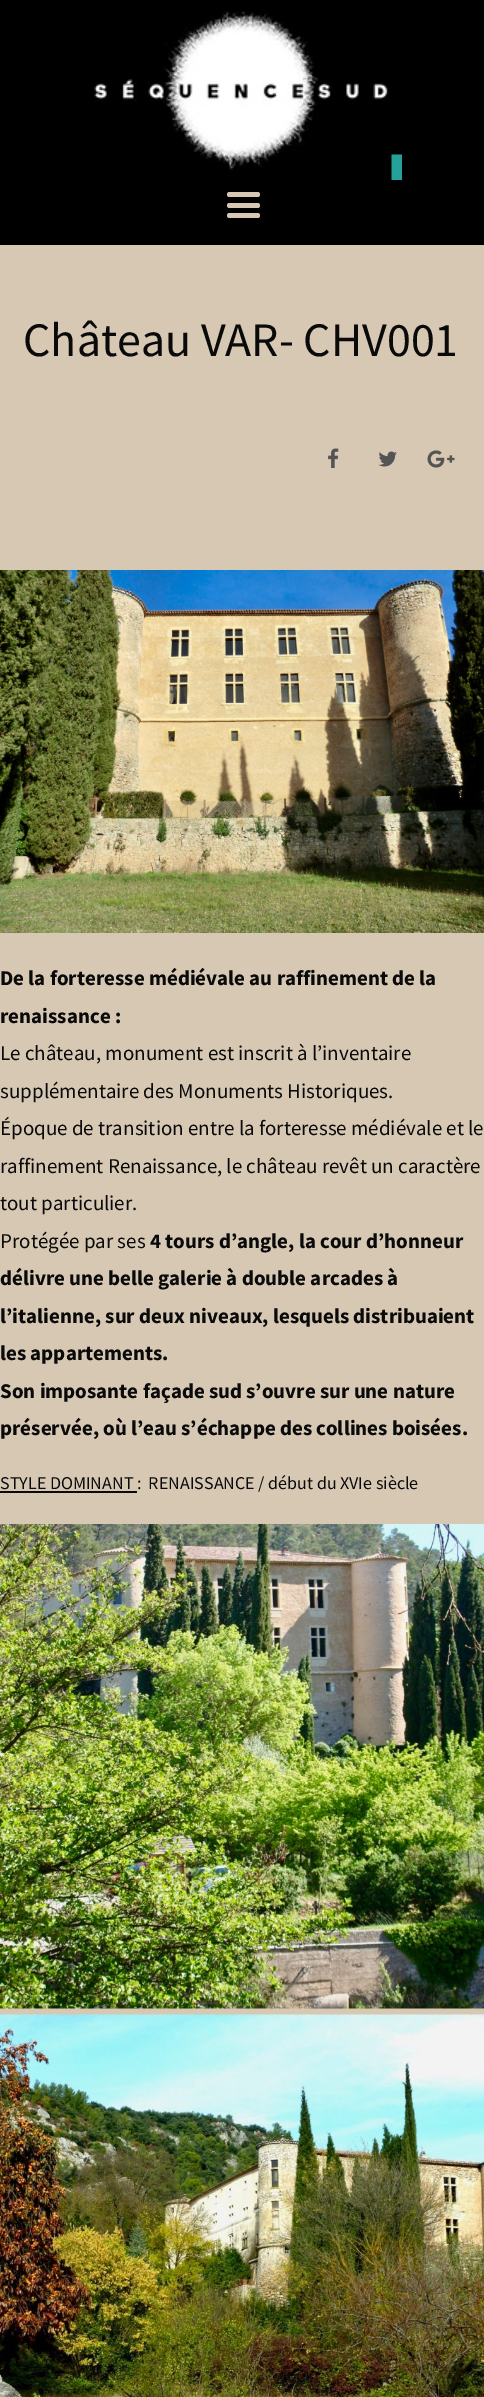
%!PS
<< /PageSize [484 2397] >> setpagedevice
/rgb { 3 { 255 div 3 1 roll } repeat setrgbcolor } def
/font { [ exch dup neg 0 0 3 -1 roll 0 0 ] selectfont } def
/roundrect { 5 dict begin { /r /h /w /y /x } { exch def } forall
  x r add y moveto x w add y 2 copy h add r arct x w add y h add x 1 index r arct
  x y h add x y r arct x y 2 copy exch w add exch r arct closepath end } def
/picture { 5 dict begin { /h /w /y /x /name } { exch def } forall
  gsave x y translate w h scale
  w h 8 [w 0 0 h 0 0] name (r) file false 3 colorimage grestore end } def
0 2397 translate 1 -1 scale
4 setmiterlimit
215 200 179 rgb
0 0 484 2397 rectfill
0 0 0 rgb
0 0 484 245 rectfill
(img/1.rgb) 94 11 308 169 picture
215 200 179 rgb
227 192 33 5 2.5 roundrect fill
227 203 33 5 2.5 roundrect fill
227 213 33 5 2.5 roundrect fill
(img/2.rgb) 328 448 11 20 picture
(img/3.rgb) 378 451 19 16 picture
(img/4.rgb) 427 450 28 18 picture
(img/5.rgb) 0 570 484 363 picture
10 10 10 rgb
0 1491 137 2 rectfill
(img/6.rgb) 0 1524 484 485 picture
(img/7.rgb) 0 2014 484 383 picture
/SourceSansPro-Regular 48 font
23 356 moveto (Château VAR- CHV001) show
/SourceSansPro-Bold 21 font
0 985 moveto (De la forteresse médiévale au raffinement de la) show
0 1023 moveto (renaissance :) show
/SourceSansPro-Regular 21 font
[
  [(Le château, monument est inscrit à l’inventaire) 0 1060]
  [(supplémentaire des Monuments Historiques.) 0 1098]
  [(Époque de transition entre la forteresse médiévale et le) 0 1135]
  [(raffinement Renaissance, le château revêt un caractère) 0 1173]
  [(tout particulier.) 0 1210]
  [(Protégée par ses) 0 1248]
] { aload pop moveto show } forall
/SourceSansPro-Bold 21 font
[
  [(4 tours d’angle, la cour d’honneur) 150 1248]
  [(délivre une belle galerie à double arcades à) 0 1285]
  [(l’italienne, sur deux niveaux, lesquels distribuaient) 0 1323]
  [(les appartements.) 0 1360]
  [(Son imposante façade sud s’ouvre sur une nature) 0 1398]
  [(préservée, où l’eau s’échappe des collines boisées.) 0 1435]
] { aload pop moveto show } forall
/SourceSansPro-Regular 18 font
0 1489 moveto (STYLE DOMINANT :  RENAISSANCE / début du XVIe siècle) show
showpage
